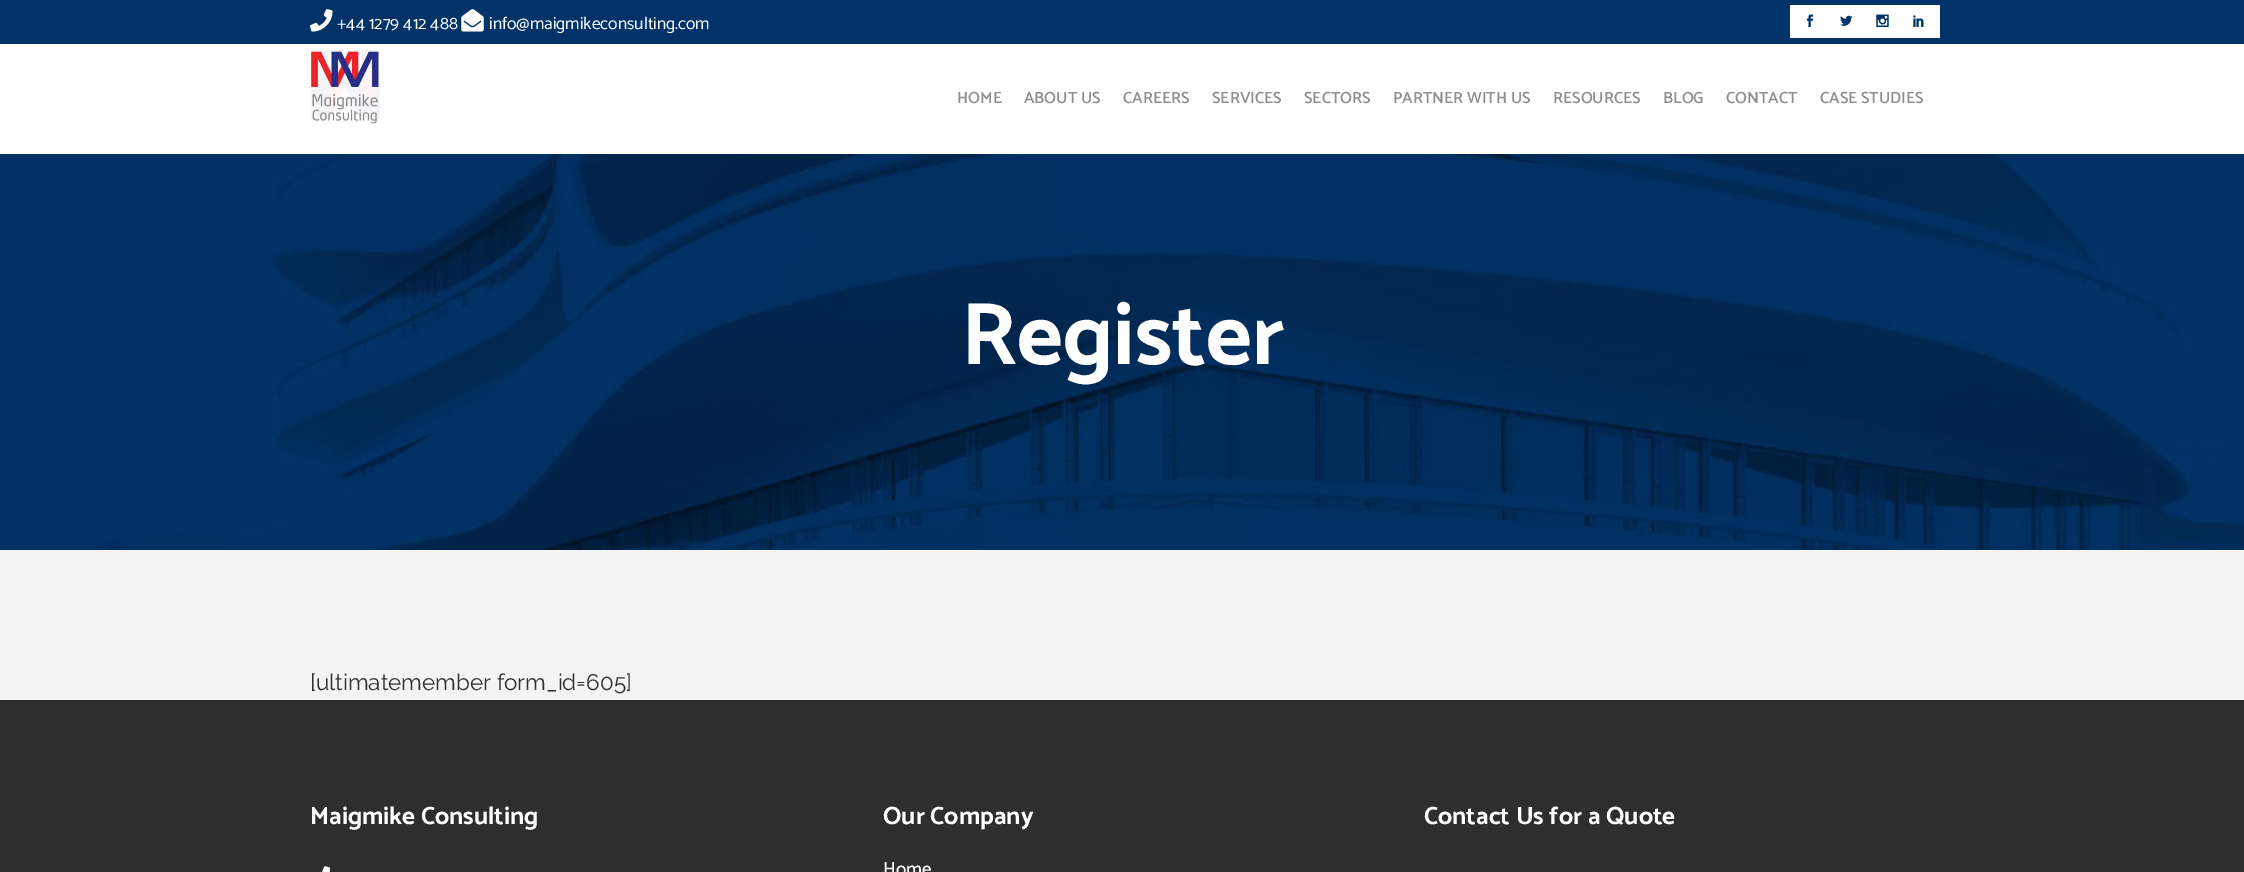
%!PS
<< /PageSize [2244 872] >> setpagedevice
/rgb { 3 { 255 div 3 1 roll } repeat setrgbcolor } def
/font { [ exch dup neg 0 0 3 -1 roll 0 0 ] selectfont } def
/roundrect { 5 dict begin { /r /h /w /y /x } { exch def } forall
  x r add y moveto x w add y 2 copy h add r arct x w add y h add x 1 index r arct
  x y h add x y r arct x y 2 copy exch w add exch r arct closepath end } def
/picture { 5 dict begin { /h /w /y /x /name } { exch def } forall
  gsave x y translate w h scale
  w h 8 [w 0 0 h 0 0] name (r) file false 3 colorimage grestore end } def
0 872 translate 1 -1 scale
4 setmiterlimit
244 244 244 rgb
0 0 2244 872 rectfill
2 51 104 rgb
0 0 2244 44 rectfill
(img/1.rgb) 310 9 23 23 picture
(img/2.rgb) 461 9 23 23 picture
255 255 255 rgb
1790 5 41 33 1 roundrect fill
(img/3.rgb) 1806 14 8 13 picture
1826 5 42 33 1 roundrect fill
(img/4.rgb) 1840 15 13 11 picture
1863 5 41 33 1 roundrect fill
(img/5.rgb) 1876 14 13 13 picture
1899 5 41 33 1 roundrect fill
(img/6.rgb) 1913 15 11 12 picture
0 44 2244 110 rectfill
(img/7.rgb) 310 50 70 74 picture
(img/8.rgb) 0 154 2244 396 picture
46 46 46 rgb
0 700 2244 172 rectfill
(img/9.rgb) 322 866 8 6 picture
/Catamaran-Regular 17.5 font
255 255 255 rgb
337 29 moveto (+44 1279 412 488) show
489 29 moveto (info@maigmikeconsulting.com) show
/Catamaran-SemiBold 16.25 font
143 143 143 rgb
[
  [(HOME) 957 103]
  [(ABOUT US) 1024 103]
  [(CAREERS) 1123 103]
  [(SERVICES) 1212 103]
  [(SECTORS) 1304 103]
  [(PARTNER WITH US) 1393 103]
  [(RESOURCES) 1553 103]
  [(BLOG) 1663 103]
  [(CONTACT) 1726 103]
  [(CASE STUDIES) 1820 103]
] { aload pop moveto show } forall
/Catamaran-Bold 89 font
255 255 255 rgb
961 364 moveto (Register) show
/Raleway-Regular 22.5 font
48 48 48 rgb
310 690 moveto ([ultimatemember form_id=605]) show
/Catamaran-Bold 25 font
255 255 255 rgb
310 824 moveto (Maigmike Consulting) show
883 824 moveto (Our Company) show
/Catamaran-Medium 19 font
883 875 moveto (Home) show
/Catamaran-Bold 25 font
1424 824 moveto (Contact Us for a Quote) show
showpage
